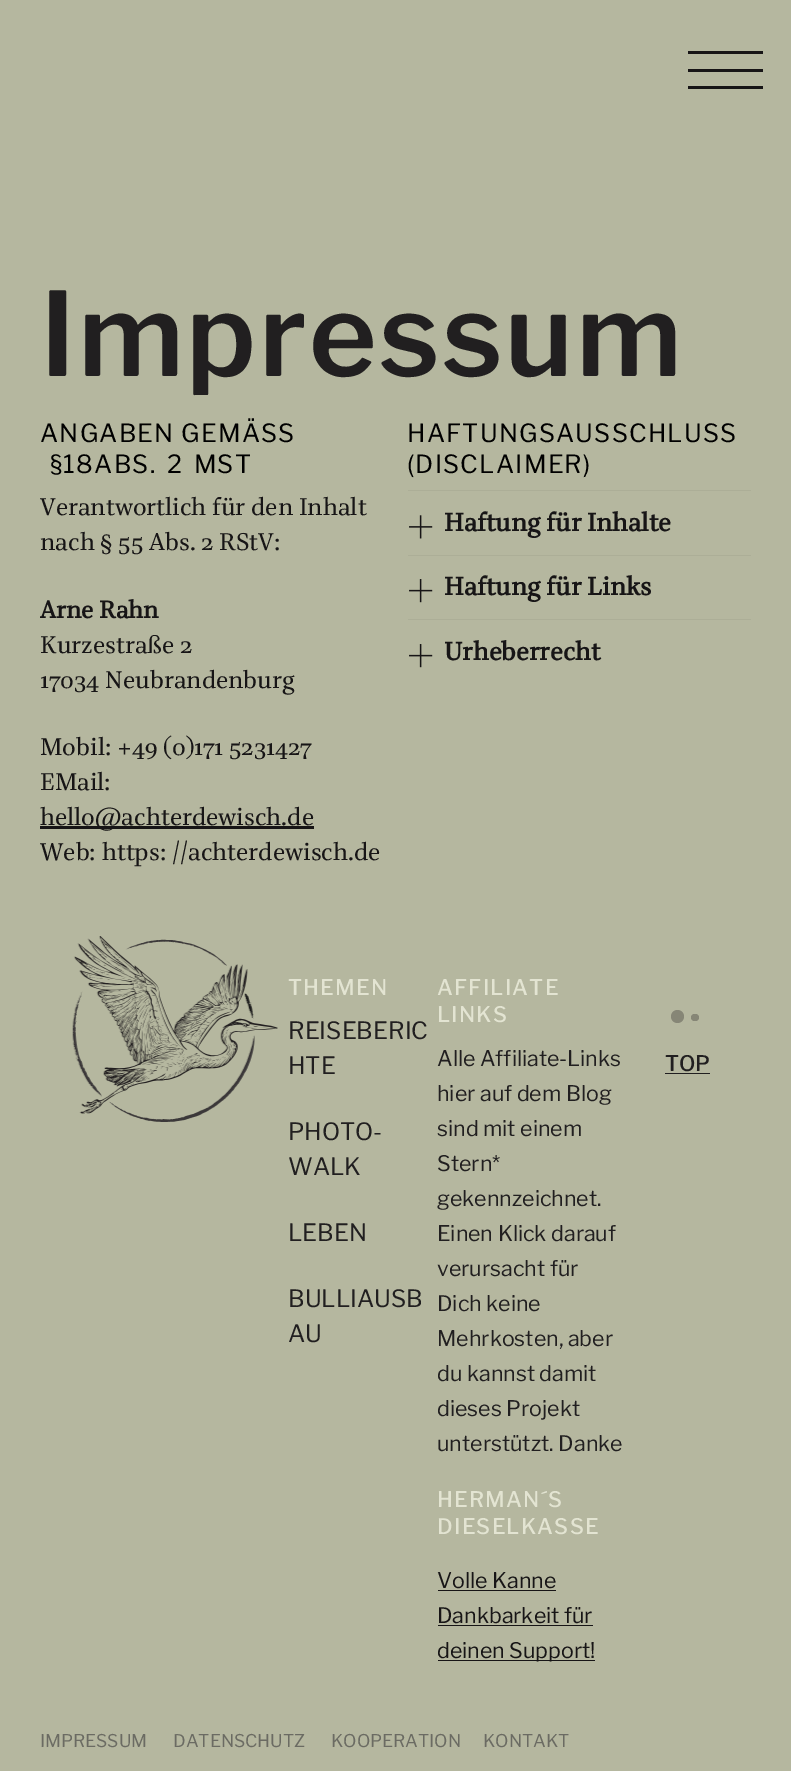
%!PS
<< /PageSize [791 1771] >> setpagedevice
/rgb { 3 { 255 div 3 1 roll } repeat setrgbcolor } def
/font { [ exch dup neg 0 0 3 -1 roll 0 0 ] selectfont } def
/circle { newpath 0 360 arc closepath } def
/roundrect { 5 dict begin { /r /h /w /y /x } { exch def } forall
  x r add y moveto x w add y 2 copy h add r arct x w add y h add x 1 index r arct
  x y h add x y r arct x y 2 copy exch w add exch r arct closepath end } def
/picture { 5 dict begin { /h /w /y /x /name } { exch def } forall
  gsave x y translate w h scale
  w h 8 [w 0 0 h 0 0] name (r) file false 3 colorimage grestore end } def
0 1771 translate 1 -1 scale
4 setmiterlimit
181 183 159 rgb
0 0 791 1771 rectfill
[
  [688 86 75 3 23 21 22]
  [688 51 75 3 23 21 22]
  [688 69 75 3 23 21 22]
  [40 826 274 3 23 21 22]
  [408 490 343 1 172 174 151]
] { aload pop rgb rectfill } forall
(img/1.rgb) 409 515 24 24 picture
408 555 343 1 rectfill
(img/2.rgb) 409 579 24 24 picture
408 619 343 1 rectfill
(img/2.rgb) 409 644 24 24 picture
(img/3.rgb) 72 936 206 186 picture
[
  [438 1590 118 1 23 21 22]
  [438 1625 155 1 23 21 22]
  [438 1660 157 1 23 21 22]
] { aload pop rgb rectfill } forall
134 134 118 rgb
677.5 1016.5 6.5 circle fill
691 1014 8 7 3.5 roundrect fill
33 31 32 rgb
665 1073 45 1 rectfill
/LibreFranklin-SemiBold 115.75 font
40 376 moveto 2.5 0 (Impressum) ashow
/LibreFranklin-Regular 25 font
0 0 0 rgb
40 442 moveto 1.25 0 (ANGABEN GEMÄSS) ashow
50 473 moveto 4 0 32 1.25 0 (§18ABS. 2 MST) awidthshow
/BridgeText-Regular 25 font
23 21 22 rgb
40 515 moveto (Verantwortlich für den Inhalt) show
40 550 moveto (nach § 55 Abs. 2 RStV:) show
/BridgeText-Bold 25 font
40 618 moveto (Arne Rahn) show
/BridgeText-Regular 25 font
[
  [(Kurzestraße 2) 40 653]
  [(17034 Neubrandenburg) 40 688]
  [(Mobil: +49 \(0\)171 5231427) 40 755]
  [(EMail:) 40 790]
  [(hello@achterdewisch.de) 40 825]
  [(Web: https: //achterdewisch.de) 40 860]
] { aload pop moveto show } forall
/LibreFranklin-Regular 25 font
0 0 0 rgb
407 442 moveto 1.25 0 (HAFTUNGSAUSSCHLUSS) ashow
407 473 moveto 1.25 0 (\(DISCLAIMER\)) ashow
/BridgeText-Bold 26.25 font
23 21 22 rgb
[
  [(Haftung für Inhalte) 444 531]
  [(Haftung für Links) 444 595]
  [(Urheberrecht) 444 660]
] { aload pop moveto show } forall
/LibreFranklin-Medium 21.4 font
227 228 210 rgb
288 995 moveto 1.25 0 (THEMEN) ashow
/LibreFranklin-Regular 23.75 font
33 31 32 rgb
[
  [(REISEBERIC) 288 1039]
  [(HTE) 288 1074]
  [(PHOTO-) 288 1140]
  [(WALK) 288 1175]
  [(LEBEN) 288 1241]
  [(BULLIAUSB) 288 1307]
  [(AU) 288 1342]
] { aload pop moveto show } forall
/LibreFranklin-Medium 21.4 font
227 228 210 rgb
437 995 moveto 1.25 0 (AFFILIATE) ashow
437 1022 moveto 1.25 0 (LINKS) ashow
/LibreFranklin-Regular 21.4 font
33 31 32 rgb
[
  [(Alle Affiliate-Links) 437 1066]
  [(hier auf dem Blog) 437 1101]
  [(sind mit einem) 437 1136]
  [(Stern*) 437 1171]
  [(gekennzeichnet.) 437 1206]
  [(Einen Klick darauf) 437 1241]
  [(verursacht für) 437 1276]
  [(Dich keine) 437 1311]
  [(Mehrkosten, aber) 437 1346]
  [(du kannst damit) 437 1381]
  [(dieses Projekt) 437 1416]
  [(unterstützt. Danke) 437 1451]
] { aload pop moveto show } forall
/LibreFranklin-Medium 21.4 font
227 228 210 rgb
437 1507 moveto 1.25 0 (HERMAN´S) ashow
437 1534 moveto 1.25 0 (DIESELKASSE) ashow
/LibreFranklin-Regular 21.4 font
23 21 22 rgb
[
  [(Volle Kanne) 437 1588]
  [(Dankbarkeit für) 437 1623]
  [(deinen Support!) 437 1658]
] { aload pop moveto show } forall
/LibreFranklin-Medium 21.4 font
33 31 32 rgb
665 1071 moveto (TOP) show
/LibreFranklin-Regular 17.5 font
107 107 99 rgb
[
  [(IMPRESSUM) 40 1747]
  [(DATENSCHUTZ) 173 1747]
  [(KOOPERATION) 331 1747]
  [(KONTAKT) 483 1747]
] { aload pop moveto show } forall
showpage
